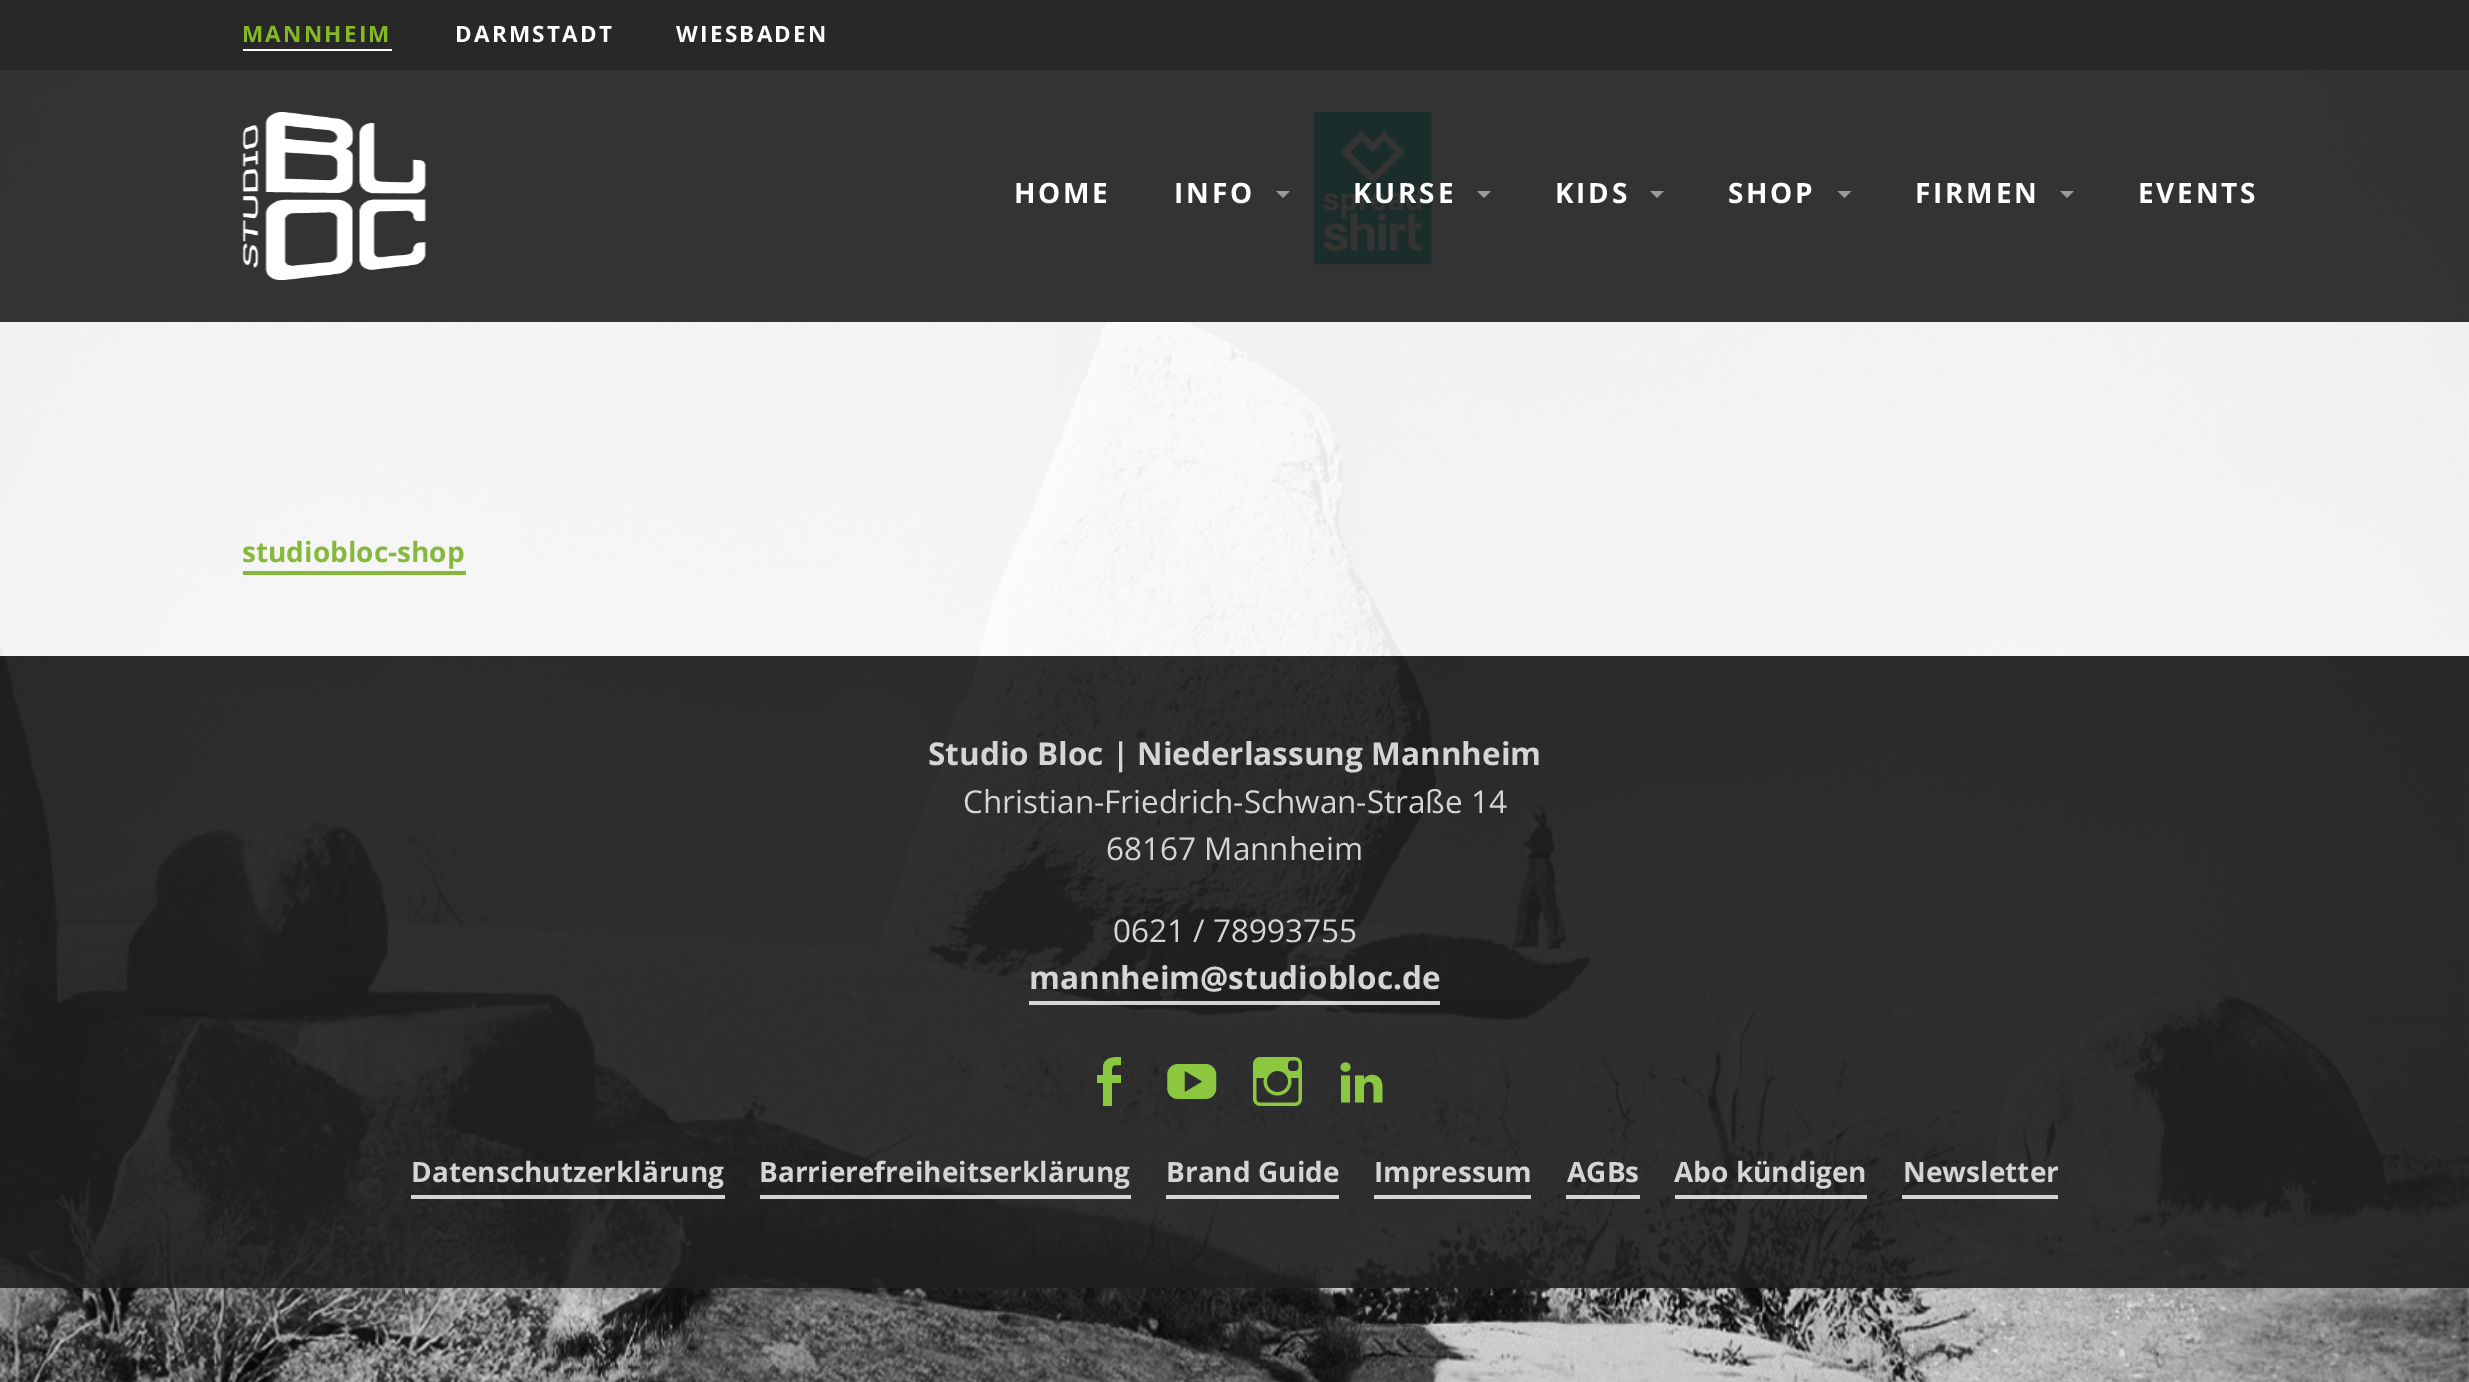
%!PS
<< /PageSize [2469 1382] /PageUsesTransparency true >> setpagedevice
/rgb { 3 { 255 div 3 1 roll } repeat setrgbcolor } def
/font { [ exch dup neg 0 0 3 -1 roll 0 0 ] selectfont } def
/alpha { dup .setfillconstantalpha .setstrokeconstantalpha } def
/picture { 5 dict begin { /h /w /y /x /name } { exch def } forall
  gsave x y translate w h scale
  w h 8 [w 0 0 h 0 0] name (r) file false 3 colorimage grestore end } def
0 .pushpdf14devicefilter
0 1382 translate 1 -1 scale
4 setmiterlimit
255 255 255 rgb
0 0 2469 1382 rectfill
(img/1.rgb) 0 70 2469 1312 picture
[
  [0 0 2469 70 40 40 40]
  [243 49 149 2 255 255 255]
] { aload pop rgb rectfill } forall
0.9 alpha
[
  [0 70 2469 586 255 255 255]
] { aload pop rgb rectfill } forall
1 alpha
(img/3.rgb) 1314 112 118 153 picture
0.9 alpha
30 30 30 rgb
0 70 2469 252 rectfill
1 alpha
(img/2.rgb) 242 112 184 168 picture
153 153 153 rgb
1276 191 moveto 1290 191 lineto 1283 198 lineto closepath fill
1477 191 moveto 1491 191 lineto 1484 198 lineto closepath fill
1650 191 moveto 1664 191 lineto 1657 198 lineto closepath fill
1837.5 191 moveto 1851.5 191 lineto 1844.5 198 lineto closepath fill
2060 191 moveto 2074 191 lineto 2067 198 lineto closepath fill
[
  [243 571 223 4 134 184 59]
] { aload pop rgb rectfill } forall
0.9 alpha
[
  [0 656 2469 632 30 30 30]
] { aload pop rgb rectfill } forall
0.8 alpha
[
  [1029 1001 411 4 255 255 255]
] { aload pop rgb rectfill } forall
1 alpha
140 199 64 rgb
1112 1075 moveto 1121 1075 lineto 1121 1083 lineto 1112 1083 lineto 1112 1106 lineto 1103 1106 lineto 1103 1083 lineto 1097 1083 lineto 1097 1075 lineto 1103 1075 lineto 1103 1066 lineto 1105 1057 1114 1057 1121 1057 curveto 1121 1065 lineto 1111 1065 1112 1065 1112 1075 curveto closepath fill
(img/4.rgb) 1167 1064 50 35 picture
(img/5.rgb) 1253 1057 49 49 picture
(img/6.rgb) 1340 1062 43 41 picture
0.8 alpha
[
  [411 1195 314 4 255 255 255]
  [760 1195 371 4 255 255 255]
  [1166 1195 173 4 255 255 255]
  [1374 1195 157 4 255 255 255]
  [1566 1195 74 4 255 255 255]
  [1675 1195 192 4 255 255 255]
  [1902 1195 156 4 255 255 255]
] { aload pop rgb rectfill } forall
/OpenSans-Bold 22.5 font
1 alpha
132 185 37 rgb
242 42 moveto 2.25 0 (MANNHEIM) ashow
255 255 255 rgb
455 42 moveto 2.25 0 (DARMSTADT) ashow
676 42 moveto 2.25 0 (WIESBADEN) ashow
/OpenSans-Bold 28 font
1014 203 moveto 2.75 0 (HOME) ashow
1174 203 moveto 2.75 0 (INFO) ashow
1353 203 moveto 2.75 0 (KURSE) ashow
1555 203 moveto 2.75 0 (KIDS) ashow
1728 203 moveto 2.75 0 (SHOP) ashow
1915 203 moveto 2.75 0 (FIRMEN) ashow
2138 203 moveto 2.75 0 (EVENTS) ashow
134 184 59 rgb
242 562 moveto (studiobloc-shop) show
/OpenSans-Bold 31.5 font
213 213 213 rgb
928 765 moveto (Studio Bloc | Niederlassung Mannheim) show
/OpenSans-Regular 31.5 font
[
  [(Christian-Friedrich-Schwan-Straße 14) 963 813]
  [(68167 Mannheim) 1106 860]
  [(0621 / 78993755) 1113 942]
] { aload pop moveto show } forall
/OpenSans-Bold 31.5 font
1029 989 moveto (mannheim@studiobloc.de) show
/OpenSans-Bold 28 font
[
  [(Datenschutzerklärung) 411 1182]
  [(Barrierefreiheitserklärung) 759 1182]
  [(Brand Guide) 1166 1182]
  [(Impressum) 1374 1182]
  [(AGBs) 1567 1182]
  [(Abo kündigen) 1674 1182]
  [(Newsletter) 1903 1182]
] { aload pop moveto show } forall
.poppdf14devicefilter showpage
